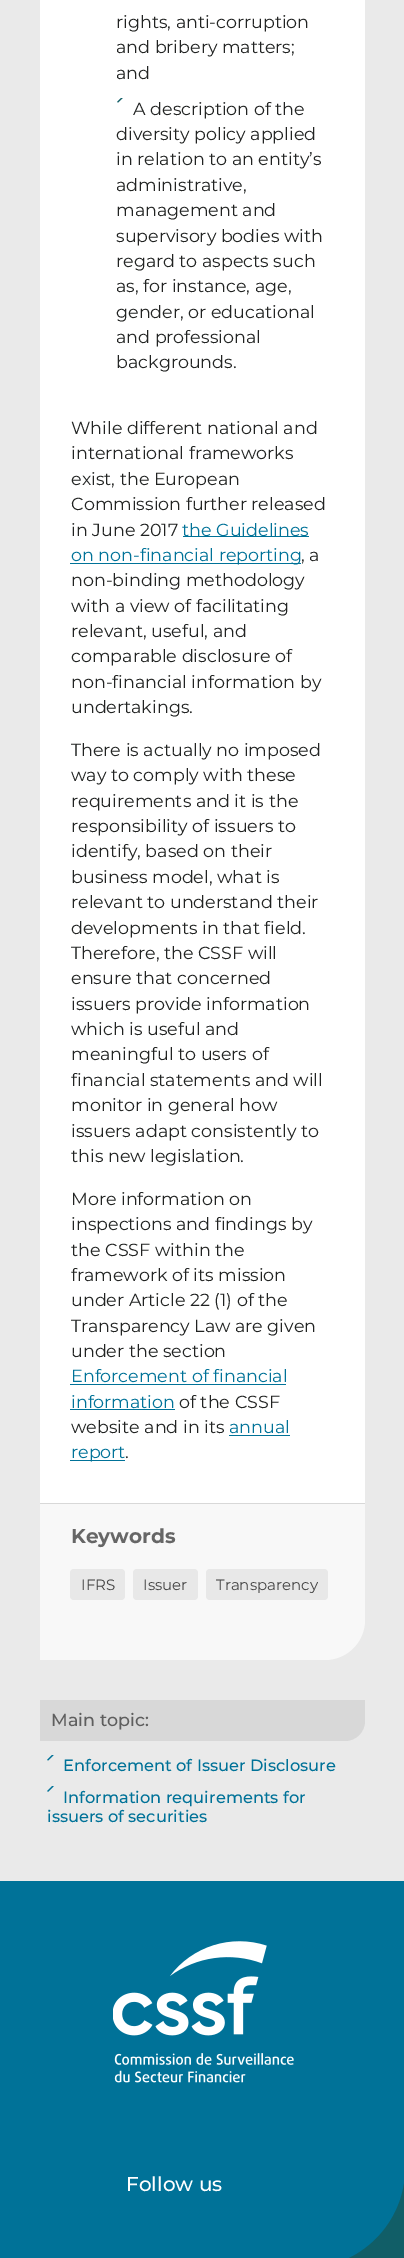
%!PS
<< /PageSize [404 2258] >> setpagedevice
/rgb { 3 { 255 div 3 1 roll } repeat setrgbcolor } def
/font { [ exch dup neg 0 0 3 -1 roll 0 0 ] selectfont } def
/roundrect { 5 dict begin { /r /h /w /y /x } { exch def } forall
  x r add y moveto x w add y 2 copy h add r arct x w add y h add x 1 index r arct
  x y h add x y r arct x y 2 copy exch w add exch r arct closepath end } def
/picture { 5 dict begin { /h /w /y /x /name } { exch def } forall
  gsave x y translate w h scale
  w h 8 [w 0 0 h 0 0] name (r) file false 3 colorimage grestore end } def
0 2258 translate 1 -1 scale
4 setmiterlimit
234 234 234 rgb
0 0 404 2258 rectfill
255 255 255 rgb
325 1463 40 40 rectfill
40 -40 moveto 365 -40 lineto 365 1463 lineto 365 1485 347 1503 325 1503 curveto 40 1503 lineto closepath fill
(img/1.rgb) 117 98 6 5 picture
[
  [183 536 126 1 0 114 152]
  [70 563 231 1 0 114 152]
  [70 1384 216 1 0 114 152]
  [70 1409 105 1 0 114 152]
  [229 1435 61 1 0 114 152]
  [70 1460 55 1 0 114 152]
] { aload pop rgb rectfill } forall
248 248 248 rgb
40 1503 moveto 365 1503 lineto 365 1620 lineto 365 1642 347 1660 325 1660 curveto 40 1660 lineto closepath fill
216 216 216 rgb
40 1503 325 1 rectfill
232 232 232 rgb
70 1569 55 31 4 roundrect fill
133 1569 65 31 4 roundrect fill
206 1569 122 31 4 roundrect fill
216 216 216 rgb
40 1700 moveto 365 1700 lineto 365 1721 lineto 365 1732 356 1741 345 1741 curveto 40 1741 lineto closepath fill
(img/2.rgb) 47 1755 7 6 picture
(img/3.rgb) 47 1786 7 6 picture
17 94 103 rgb
348 2182 56 76 rectfill
0 114 152 rgb
0 1881 moveto 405 1881 lineto 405 2168 lineto 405 2223 360 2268 305 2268 curveto 0 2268 lineto closepath fill
(img/4.rgb) 113 1941 181 142 picture
/Montserrat-Regular 17.5 font
33 35 34 rgb
[
  [(rights, anti-corruption) 116 28]
  [(and bribery matters;) 116 53]
  [(and) 116 79]
  [(A description of the) 133 115]
  [(diversity policy applied) 116 140]
  [(in relation to an entity’s) 116 165]
  [(administrative,) 116 191]
  [(management and) 116 216]
  [(supervisory bodies with) 116 242]
  [(regard to aspects such) 116 267]
  [(as, for instance, age,) 116 292]
  [(gender, or educational) 116 318]
  [(and professional) 116 343]
  [(backgrounds.) 116 368]
  [(While different national and) 71 434]
  [(international frameworks) 71 459]
  [(exist, the European) 71 485]
  [(Commission further released) 71 510]
  [(in June 2017) 71 536]
] { aload pop moveto show } forall
0 114 152 rgb
182 536 moveto (the Guidelines) show
71 561 moveto (on non-financial reporting) show
33 35 34 rgb
[
  [(, a) 301 561]
  [(non-binding methodology) 71 586]
  [(with a view of facilitating) 71 612]
  [(relevant, useful, and) 71 637]
  [(comparable disclosure of) 71 662]
  [(non-financial information by) 71 688]
  [(undertakings.) 71 713]
  [(There is actually no imposed) 71 756]
  [(way to comply with these) 71 781]
  [(requirements and it is the) 71 807]
  [(responsibility of issuers to) 71 832]
  [(identify, based on their) 71 857]
  [(business model, what is) 71 883]
  [(relevant to understand their) 71 908]
  [(developments in that field.) 71 934]
  [(Therefore, the CSSF will) 71 959]
  [(ensure that concerned) 71 984]
  [(issuers provide information) 71 1010]
  [(which is useful and) 71 1035]
  [(meaningful to users of) 71 1060]
  [(financial statements and will) 71 1086]
  [(monitor in general how) 71 1111]
  [(issuers adapt consistently to) 71 1137]
  [(this new legislation.) 71 1162]
  [(More information on) 71 1205]
  [(inspections and findings by) 71 1230]
  [(the CSSF within the) 71 1256]
  [(framework of its mission) 71 1281]
  [(under Article 22 \(1\) of the) 71 1306]
  [(Transparency Law are given) 71 1332]
  [(under the section) 71 1357]
] { aload pop moveto show } forall
0 114 152 rgb
71 1382 moveto (Enforcement of financial) show
71 1408 moveto (information) show
33 35 34 rgb
179 1408 moveto (of the CSSF) show
71 1433 moveto (website and in its) show
0 114 152 rgb
229 1433 moveto (annual) show
71 1458 moveto (report) show
33 35 34 rgb
125 1458 moveto (.) show
/Montserrat-Bold 20 font
102 102 102 rgb
71 1543 moveto (Keywords) show
/Montserrat-Regular 15 font
68 68 68 rgb
[
  [(IFRS) 81 1590]
  [(Issuer) 143 1590]
  [(Transparency) 216 1590]
] { aload pop moveto show } forall
/Montserrat-Medium 17.5 font
94 94 94 rgb
51 1726 moveto (Main topic:) show
/Montserrat-Medium 16.25 font
0 114 152 rgb
[
  [(Enforcement of Issuer Disclosure) 63 1771]
  [(Information requirements for) 63 1803]
  [(issuers of securities) 47 1822]
] { aload pop moveto show } forall
/Montserrat-Medium 20 font
255 255 255 rgb
126 2191 moveto (Follow us) show
showpage
